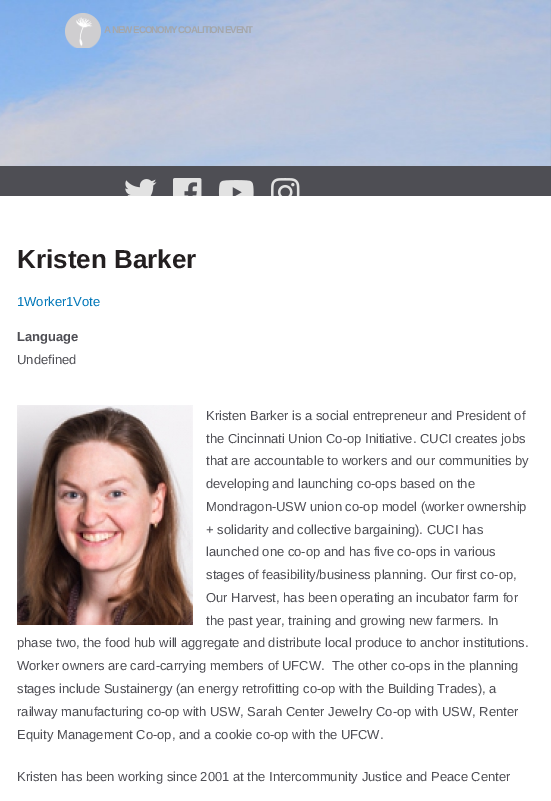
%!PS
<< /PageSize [551 801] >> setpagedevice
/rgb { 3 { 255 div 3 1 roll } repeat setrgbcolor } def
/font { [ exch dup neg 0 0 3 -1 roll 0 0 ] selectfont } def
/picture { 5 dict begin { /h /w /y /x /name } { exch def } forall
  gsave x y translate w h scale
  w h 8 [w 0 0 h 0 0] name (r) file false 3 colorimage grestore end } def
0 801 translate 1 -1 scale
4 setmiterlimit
255 255 255 rgb
0 0 551 801 rectfill
(img/1.rgb) 0 0 551 166 picture
(img/2.rgb) 65 13 36 35 picture
78 78 84 rgb
0 166 551 30 rectfill
(img/3.rgb) 125 179 32 17 picture
(img/4.rgb) 173 178 29 18 picture
(img/5.rgb) 218 180 36 16 picture
(img/6.rgb) 271 178 29 18 picture
(img/7.rgb) 17 405 176 220 picture
/LiberationSans-Bold 9.75 font
165 167 170 rgb
104 33 moveto -1 0 (A NEW ECONOMY COALITION EVENT) ashow
/LiberationSans-Bold 26 font
35 31 32 rgb
17 268 moveto (Kristen Barker) show
/LiberationSans-Regular 13 font
0 119 185 rgb
17 306 moveto (1Worker1Vote) show
/LiberationSans-Bold 13 font
78 78 84 rgb
17 341 moveto (Language) show
/LiberationSans-Regular 13 font
[
  [(Undefined) 17 364]
  [(Kristen Barker is a social entrepreneur and President of) 206 420]
  [(the Cincinnati Union Co-op Initiative. CUCI creates jobs) 206 443]
  [(that are accountable to workers and our communities by) 206 465]
  [(developing and launching co-ops based on the) 206 488]
  [(Mondragon-USW union co-op model \(worker ownership) 206 511]
  [(+ solidarity and collective bargaining\). CUCI has) 206 534]
  [(launched one co-op and has five co-ops in various) 206 556]
  [(stages of feasibility/business planning. Our first co-op,) 206 579]
  [(Our Harvest, has been operating an incubator farm for) 206 602]
  [(the past year, training and growing new farmers. In) 206 625]
  [(phase two, the food hub will aggregate and distribute local produce to anchor institutions.) 17 647]
  [(Worker owners are card-carrying members of UFCW.  The other co-ops in the planning) 17 670]
  [(stages include Sustainergy \(an energy retrofitting co-op with the Building Trades\), a) 17 693]
  [(railway manufacturing co-op with USW, Sarah Center Jewelry Co-op with USW, Renter) 17 716]
  [(Equity Management Co-op, and a cookie co-op with the UFCW.) 17 739]
  [(Kristen has been working since 2001 at the Intercommunity Justice and Peace Center) 17 781]
] { aload pop moveto show } forall
showpage
